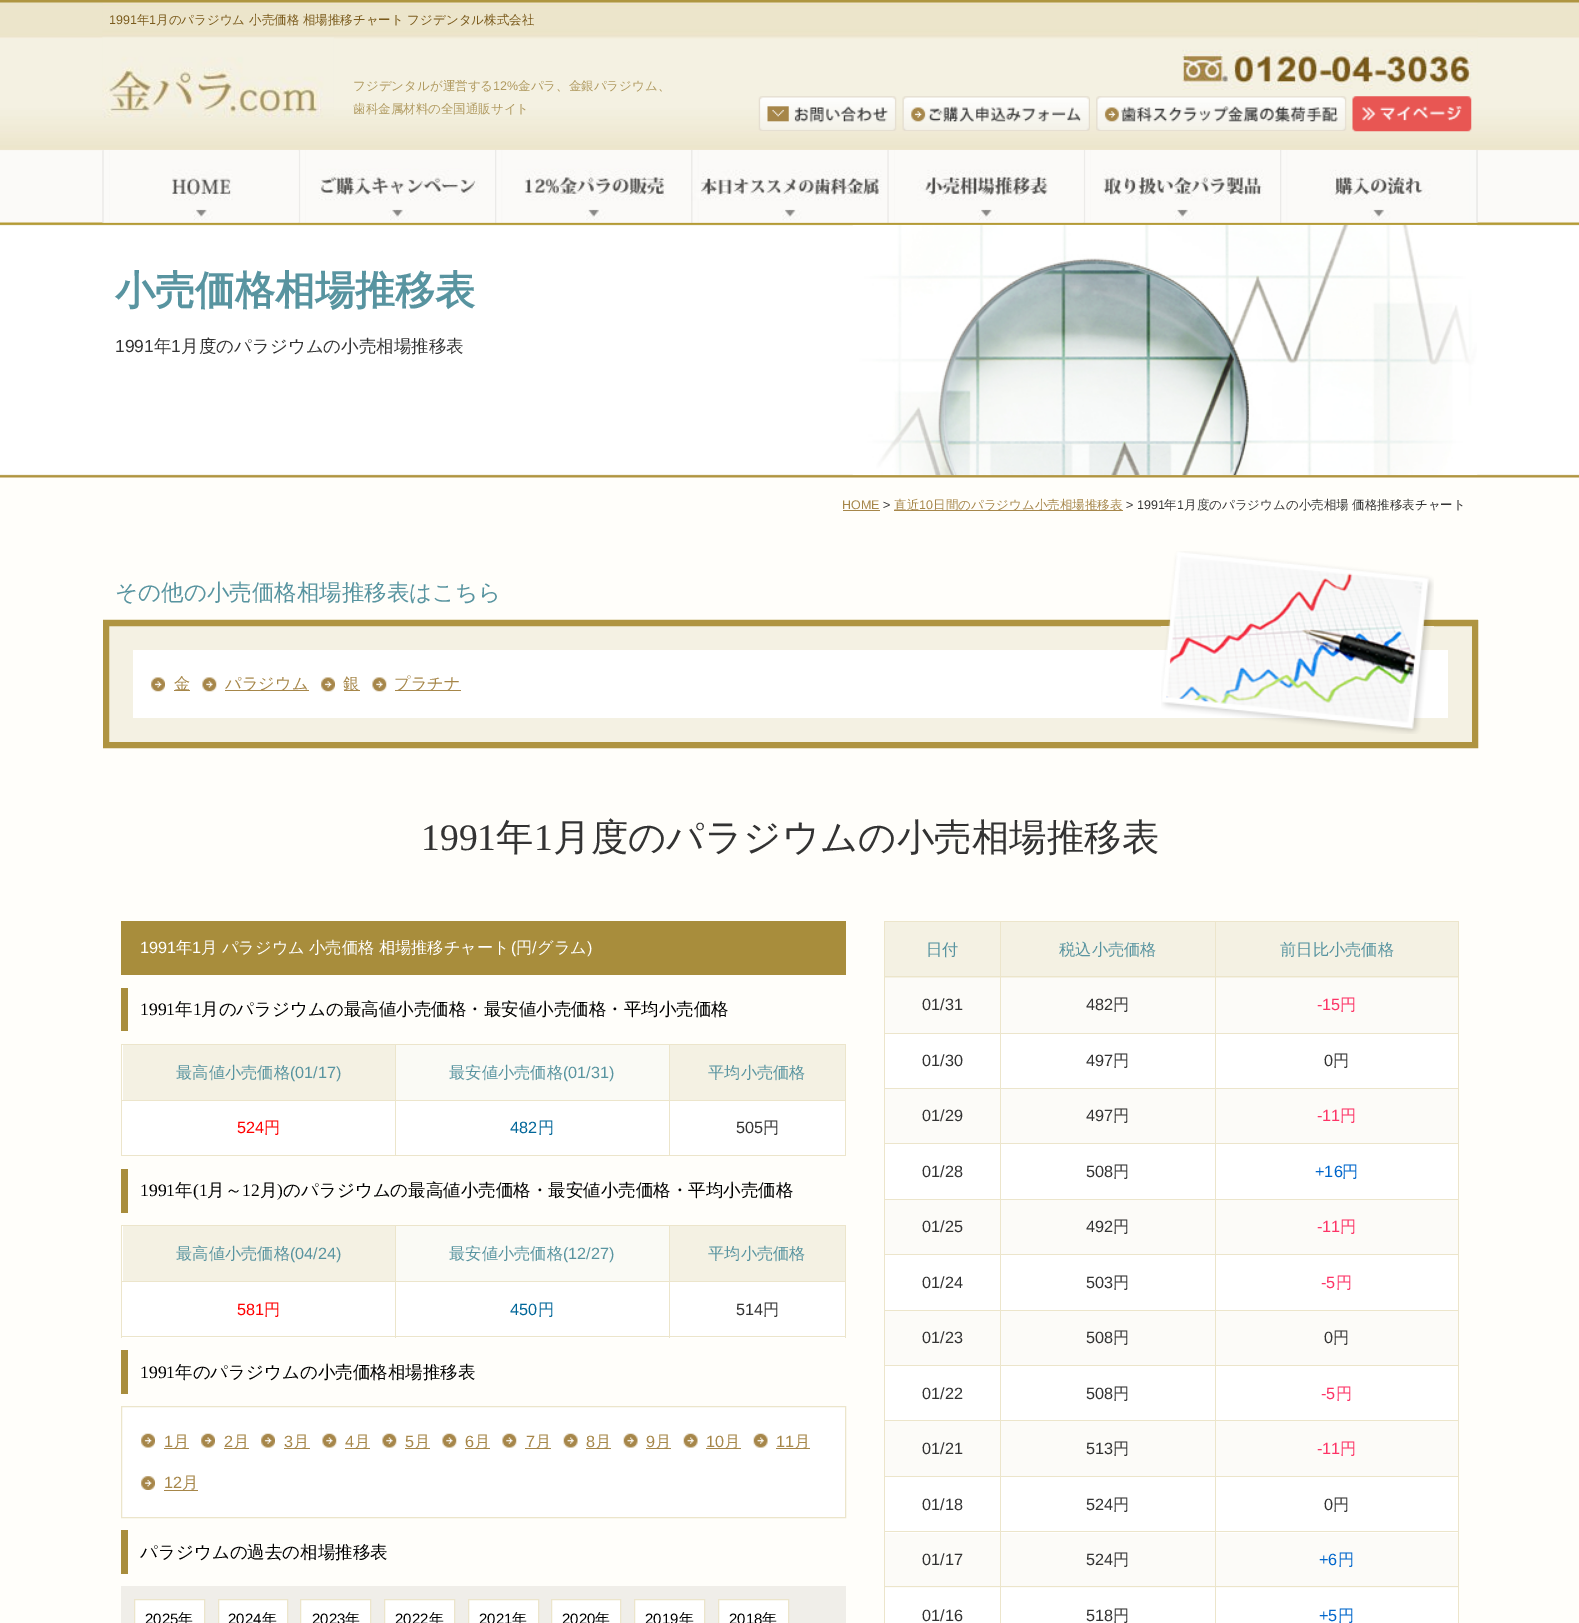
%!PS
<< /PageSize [1579 1623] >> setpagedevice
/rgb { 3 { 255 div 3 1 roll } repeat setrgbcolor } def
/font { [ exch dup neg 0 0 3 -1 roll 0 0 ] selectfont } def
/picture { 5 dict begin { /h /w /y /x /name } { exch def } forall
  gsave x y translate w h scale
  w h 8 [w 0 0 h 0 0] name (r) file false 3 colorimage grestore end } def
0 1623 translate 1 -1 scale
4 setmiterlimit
255 254 250 rgb
0 0 1579 1623 rectfill
(img/1.rgb) 0 0 1579 478 picture
(img/2.rgb) 102 3 1376 87 picture
(img/3.rgb) 102 37 232 81 picture
(img/4.rgb) 758 96 139 35 picture
(img/5.rgb) 902 96 188 35 picture
(img/6.rgb) 1096 96 251 35 picture
(img/7.rgb) 1352 96 120 36 picture
(img/8.rgb) 102 150 197 73 picture
(img/10.rgb) 298 150 197 73 picture
(img/9.rgb) 102 151 197 72 picture
(img/11.rgb) 299 170 196 53 picture
(img/12.rgb) 495 150 197 73 picture
(img/14.rgb) 691 150 197 73 picture
(img/13.rgb) 495 170 197 53 picture
(img/16.rgb) 887 150 197 73 picture
(img/15.rgb) 691 150 197 73 picture
(img/18.rgb) 1083 150 197 73 picture
(img/17.rgb) 887 150 197 73 picture
(img/19.rgb) 1084 169 196 54 picture
(img/20.rgb) 1280 150 198 73 picture
(img/21.rgb) 1280 150 198 73 picture
(img/22.rgb) 852 225 626 250 picture
[
  [843 510 37 1 166 134 73]
  [894 510 229 1 166 134 73]
  [103 619 1375 1 236 229 203]
] { aload pop rgb rectfill } forall
244 241 227 rgb
106 623 moveto 1475 623 lineto 1475 745 lineto 106 745 lineto closepath gsave fill grestore
175 148 65 rgb
6 setlinewidth
stroke
255 255 255 rgb
133 650 1315 68 rectfill
(img/23.rgb) 1161 551 273 183 picture
(img/24.rgb) 151 677 14 15 picture
166 134 73 rgb
174 690 16 1 rectfill
(img/25.rgb) 202 677 15 15 picture
225 690 84 1 rectfill
(img/24.rgb) 321 677 14 15 picture
344 690 16 1 rectfill
(img/26.rgb) 372 677 15 15 picture
[
  [395 690 66 1 166 134 73]
  [121 921 725 54 168 141 60]
  [121 988 7 43 168 141 60]
  [122 1045 723 110 255 255 255]
  [123 1045 272 55 244 241 227]
  [669 1044 177 1 236 229 203]
  [669 1100 177 1 236 229 203]
  [845 1100 1 56 236 229 203]
  [669 1155 177 1 236 229 203]
  [669 1100 1 56 236 229 203]
  [395 1100 275 1 236 229 203]
  [669 1044 1 57 236 229 203]
  [395 1044 275 1 236 229 203]
  [395 1155 275 1 236 229 203]
  [395 1100 1 56 236 229 203]
  [121 1100 275 1 236 229 203]
  [395 1044 1 57 236 229 203]
  [121 1044 275 1 236 229 203]
  [121 1155 275 1 236 229 203]
  [121 1100 1 56 236 229 203]
  [121 1044 1 57 236 229 203]
  [396 1045 273 55 250 250 245]
  [670 1045 175 55 244 241 227]
  [845 1044 1 57 236 229 203]
  [121 1169 7 44 168 141 60]
  [122 1226 723 112 255 255 255]
  [123 1226 272 55 244 241 227]
  [669 1225 177 1 236 229 203]
  [669 1281 177 1 236 229 203]
  [845 1281 1 57 236 229 203]
  [669 1336 177 1 236 229 203]
  [669 1281 1 57 236 229 203]
  [395 1281 275 1 236 229 203]
  [669 1225 1 58 236 229 203]
  [395 1225 275 1 236 229 203]
  [395 1336 275 1 236 229 203]
  [395 1281 1 57 236 229 203]
  [121 1281 275 1 236 229 203]
  [395 1225 1 58 236 229 203]
  [121 1225 275 1 236 229 203]
  [121 1336 275 1 236 229 203]
  [121 1281 1 57 236 229 203]
  [121 1225 1 58 236 229 203]
  [396 1226 273 55 250 250 245]
  [670 1226 175 55 244 241 227]
  [845 1225 1 58 236 229 203]
  [121 1350 7 44 168 141 60]
] { aload pop rgb rectfill } forall
255 255 255 rgb
121.5 1406.5 moveto 845.5 1406.5 lineto 845.5 1517.5 lineto 121.5 1517.5 lineto closepath gsave fill grestore
236 229 203 rgb
1 setlinewidth
stroke
(img/27.rgb) 141 1433 14 15 picture
166 134 73 rgb
164 1448 25 1 rectfill
(img/27.rgb) 201 1433 14 15 picture
224 1448 25 1 rectfill
(img/27.rgb) 261 1433 14 15 picture
284 1448 26 1 rectfill
(img/28.rgb) 322 1433 15 15 picture
345 1448 25 1 rectfill
(img/29.rgb) 382 1433 15 15 picture
405 1448 25 1 rectfill
(img/28.rgb) 442 1433 15 15 picture
465 1448 25 1 rectfill
(img/28.rgb) 502 1433 15 15 picture
525 1448 26 1 rectfill
(img/30.rgb) 563 1433 15 15 picture
586 1448 25 1 rectfill
(img/31.rgb) 623 1433 15 15 picture
646 1448 25 1 rectfill
(img/30.rgb) 683 1433 15 15 picture
706 1448 35 1 rectfill
(img/30.rgb) 753 1433 15 15 picture
776 1448 34 1 rectfill
(img/32.rgb) 141 1476 14 14 picture
[
  [164 1490 34 1 166 134 73]
  [121 1530 7 44 168 141 60]
  [121 1586 725 37 240 238 233]
] { aload pop rgb rectfill } forall
255 255 255 rgb
134.5 1599.5 moveto 204.5 1599.5 lineto 204.5 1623.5 lineto 134.5 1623.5 lineto closepath gsave fill grestore
236 229 203 rgb
stroke
255 255 255 rgb
218.5 1599.5 moveto 287.5 1599.5 lineto 287.5 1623.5 lineto 218.5 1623.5 lineto closepath gsave fill grestore
236 229 203 rgb
stroke
255 255 255 rgb
300.5 1599.5 moveto 370.5 1599.5 lineto 370.5 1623.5 lineto 300.5 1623.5 lineto closepath gsave fill grestore
236 229 203 rgb
stroke
255 255 255 rgb
384.5 1599.5 moveto 454.5 1599.5 lineto 454.5 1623.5 lineto 384.5 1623.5 lineto closepath gsave fill grestore
236 229 203 rgb
stroke
255 255 255 rgb
468.5 1599.5 moveto 538.5 1599.5 lineto 538.5 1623.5 lineto 468.5 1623.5 lineto closepath gsave fill grestore
236 229 203 rgb
stroke
255 255 255 rgb
551.5 1599.5 moveto 620.5 1599.5 lineto 620.5 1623.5 lineto 551.5 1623.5 lineto closepath gsave fill grestore
236 229 203 rgb
stroke
255 255 255 rgb
634.5 1599.5 moveto 704.5 1599.5 lineto 704.5 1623.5 lineto 634.5 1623.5 lineto closepath gsave fill grestore
236 229 203 rgb
stroke
255 255 255 rgb
718.5 1599.5 moveto 788.5 1599.5 lineto 788.5 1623.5 lineto 718.5 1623.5 lineto closepath gsave fill grestore
236 229 203 rgb
stroke
[
  [885 1034 573 589 255 255 255]
  [885 922 115 56 244 241 227]
  [1215 921 244 1 236 229 203]
  [1001 922 214 56 244 241 227]
  [1216 922 242 56 244 241 227]
  [1215 976 244 1 236 229 203]
  [885 978 573 55 252 251 248]
  [1215 1033 244 1 236 229 203]
  [1215 1088 244 1 236 229 203]
  [885 1089 573 54 252 251 248]
  [1215 1143 244 1 236 229 203]
  [1215 1199 244 1 236 229 203]
  [885 1200 573 54 252 251 248]
  [1215 1254 244 1 236 229 203]
  [1215 1310 244 1 236 229 203]
  [885 1311 573 54 252 251 248]
  [1215 1365 244 1 236 229 203]
  [1215 1420 244 1 236 229 203]
  [885 1421 573 55 252 251 248]
  [1215 1476 244 1 236 229 203]
  [1215 1531 244 1 236 229 203]
  [885 1533 573 55 252 251 248]
  [1215 1586 244 1 236 229 203]
  [1215 1586 1 37 236 229 203]
  [1000 1586 216 1 236 229 203]
  [1215 1531 1 57 236 229 203]
  [1000 1531 216 1 236 229 203]
  [1215 1476 1 57 236 229 203]
  [1000 1476 216 1 236 229 203]
  [1215 1420 1 58 236 229 203]
  [1000 1420 216 1 236 229 203]
  [1215 1365 1 56 236 229 203]
  [1000 1365 216 1 236 229 203]
  [1215 1310 1 56 236 229 203]
  [1000 1310 216 1 236 229 203]
  [1215 1254 1 57 236 229 203]
  [1000 1254 216 1 236 229 203]
  [1215 1199 1 56 236 229 203]
  [1000 1199 216 1 236 229 203]
  [1215 1143 1 57 236 229 203]
  [1000 1143 216 1 236 229 203]
  [1215 1088 1 56 236 229 203]
  [1000 1088 216 1 236 229 203]
  [1215 1033 1 56 236 229 203]
  [1000 1033 216 1 236 229 203]
  [1215 976 1 58 236 229 203]
  [1000 976 216 1 236 229 203]
  [1215 921 1 57 236 229 203]
  [1000 921 216 1 236 229 203]
  [1000 1586 1 37 236 229 203]
  [884 1586 117 1 236 229 203]
  [1000 1531 1 57 236 229 203]
  [884 1531 117 1 236 229 203]
  [1000 1476 1 57 236 229 203]
  [884 1476 117 1 236 229 203]
  [1000 1420 1 58 236 229 203]
  [884 1420 117 1 236 229 203]
  [1000 1365 1 56 236 229 203]
  [884 1365 117 1 236 229 203]
  [1000 1310 1 56 236 229 203]
  [884 1310 117 1 236 229 203]
  [1000 1254 1 57 236 229 203]
  [884 1254 117 1 236 229 203]
  [1000 1199 1 56 236 229 203]
  [884 1199 117 1 236 229 203]
  [1000 1143 1 57 236 229 203]
  [884 1143 117 1 236 229 203]
  [1000 1088 1 56 236 229 203]
  [884 1088 117 1 236 229 203]
  [1000 1033 1 56 236 229 203]
  [884 1033 117 1 236 229 203]
  [1000 976 1 58 236 229 203]
  [884 976 117 1 236 229 203]
  [1000 921 1 57 236 229 203]
  [884 921 117 1 236 229 203]
  [884 1586 1 37 236 229 203]
  [884 1531 1 57 236 229 203]
  [884 1476 1 57 236 229 203]
  [884 1420 1 58 236 229 203]
  [884 1365 1 56 236 229 203]
  [884 1310 1 56 236 229 203]
  [884 1254 1 57 236 229 203]
  [884 1199 1 56 236 229 203]
  [884 1143 1 57 236 229 203]
  [884 1088 1 56 236 229 203]
  [884 1033 1 56 236 229 203]
  [884 976 1 58 236 229 203]
  [884 921 1 57 236 229 203]
  [1458 1586 1 37 236 229 203]
  [1458 1531 1 57 236 229 203]
  [1458 1476 1 57 236 229 203]
  [1458 1420 1 58 236 229 203]
  [1458 1365 1 56 236 229 203]
  [1458 1310 1 56 236 229 203]
  [1458 1254 1 57 236 229 203]
  [1458 1199 1 56 236 229 203]
  [1458 1143 1 57 236 229 203]
  [1458 1088 1 56 236 229 203]
  [1458 1033 1 56 236 229 203]
  [1458 976 1 58 236 229 203]
  [1458 921 1 57 236 229 203]
] { aload pop rgb rectfill } forall
/LiberationSans-Regular 12.5 font
122 90 27 rgb
109 24 moveto (1991) show
/WenQuanYiZenHei-Medium 12.5 font
137 24 moveto (年) show
/LiberationSans-Regular 12.5 font
149 24 moveto (1) show
/WenQuanYiZenHei-Medium 12.5 font
156 24 moveto (月のパラジウム 小売価格 相場推移チャート フジデンタル株式会社) show
177 155 97 rgb
353 90 moveto (フジデンタルが運営する) show
/LiberationSans-Regular 12.5 font
493 90 moveto (12%) show
/WenQuanYiZenHei-Medium 12.5 font
518 90 moveto (金パラ、金銀パラジウム、) show
353 113 moveto (歯科金属材料の全国通販サイト) show
/WenQuanYiZenHei-Bold 40 font
88 148 160 rgb
115 304 moveto (小売価格相場推移表) show
/LiberationSans-Regular 17.5 font
51 51 51 rgb
115 352 moveto (1991) show
/WenQuanYiZenHei-Medium 17.5 font
154 352 moveto (年) show
/LiberationSans-Regular 17.5 font
171 352 moveto (1) show
/WenQuanYiZenHei-Medium 17.5 font
181 352 moveto (月度のパラジウムの小売相場推移表) show
/LiberationSans-Regular 12.5 font
166 134 73 rgb
842 509 moveto (HOME) show
51 51 51 rgb
883 509 moveto (>) show
/WenQuanYiZenHei-Medium 12.5 font
166 134 73 rgb
894 509 moveto (直近) show
/LiberationSans-Regular 12.5 font
919 509 moveto (10) show
/WenQuanYiZenHei-Medium 12.5 font
933 509 moveto (日間のパラジウム小売相場推移表) show
/LiberationSans-Regular 12.5 font
51 51 51 rgb
1126 509 moveto (> 1991) show
/WenQuanYiZenHei-Medium 12.5 font
1164 509 moveto (年) show
/LiberationSans-Regular 12.5 font
1177 509 moveto (1) show
/WenQuanYiZenHei-Medium 12.5 font
1184 509 moveto (月度のパラジウムの小売相場 価格推移表チャート) show
/WenQuanYiZenHei-Medium 22.5 font
88 148 160 rgb
115 600 moveto (その他の小売価格相場推移表はこちら) show
/WenQuanYiZenHei-Medium 16.25 font
166 134 73 rgb
[
  [(金) 174 689]
  [(パラジウム) 225 689]
  [(銀) 343 689]
  [(プラチナ) 394 689]
] { aload pop moveto show } forall
/LiberationSerif-Regular 37.5 font
51 51 51 rgb
421 850 moveto (1991) show
/WenQuanYiZenHei-Medium 37.5 font
496 850 moveto (年) show
/LiberationSerif-Regular 37.5 font
534 850 moveto (1) show
/WenQuanYiZenHei-Medium 37.5 font
553 850 moveto (月度のパラジウムの小売相場推移表) show
/LiberationSans-Regular 16.25 font
255 255 255 rgb
140 953 moveto (1991) show
/WenQuanYiZenHei-Medium 16.25 font
176 953 moveto (年) show
/LiberationSans-Regular 16.25 font
192 953 moveto (1) show
/WenQuanYiZenHei-Medium 16.25 font
201 953 moveto -0.5 0 32 (月 パラジウム 小売価格 相場推移チャート) widthshow
/LiberationSans-Regular 16.25 font
511 953 moveto (\() show
/WenQuanYiZenHei-Medium 16.25 font
516 953 moveto (円) show
/LiberationSans-Regular 16.25 font
532 953 moveto (/) show
/WenQuanYiZenHei-Medium 16.25 font
537 953 moveto (グラム) show
/LiberationSans-Regular 16.25 font
587 953 moveto (\)) show
/LiberationSerif-Regular 17.5 font
0 0 0 rgb
140 1015 moveto (1991) show
/WenQuanYiZenHei-Medium 17.5 font
175 1015 moveto (年) show
/LiberationSerif-Regular 17.5 font
193 1015 moveto (1) show
/WenQuanYiZenHei-Medium 17.5 font
201 1015 moveto (月のパラジウムの最高値小売価格・最安値小売価格・平均小売価格) show
/WenQuanYiZenHei-Medium 16.25 font
88 148 160 rgb
176 1078 moveto (最高値小売価格) show
/LiberationSans-Regular 16.25 font
290 1078 moveto (\(01/17\)) show
/WenQuanYiZenHei-Medium 16.25 font
449 1078 moveto (最安値小売価格) show
/LiberationSans-Regular 16.25 font
563 1078 moveto (\(01/31\)) show
/WenQuanYiZenHei-Medium 16.25 font
708 1078 moveto (平均小売価格) show
/LiberationSans-Regular 16.25 font
255 0 0 rgb
237 1133 moveto (524) show
/WenQuanYiZenHei-Medium 16.25 font
264 1133 moveto (円) show
/LiberationSans-Regular 16.25 font
0 102 153 rgb
510 1133 moveto (482) show
/WenQuanYiZenHei-Medium 16.25 font
538 1133 moveto (円) show
/LiberationSans-Regular 16.25 font
51 51 51 rgb
736 1133 moveto (505) show
/WenQuanYiZenHei-Medium 16.25 font
763 1133 moveto (円) show
/LiberationSerif-Regular 17.5 font
0 0 0 rgb
140 1196 moveto (1991) show
/WenQuanYiZenHei-Medium 17.5 font
175 1196 moveto (年) show
/LiberationSerif-Regular 17.5 font
193 1196 moveto (\(1) show
/WenQuanYiZenHei-Medium 17.5 font
207 1196 moveto (月～) show
/LiberationSerif-Regular 17.5 font
242 1196 moveto (12) show
/WenQuanYiZenHei-Medium 17.5 font
260 1196 moveto (月) show
/LiberationSerif-Regular 17.5 font
277 1196 moveto (\)) show
/WenQuanYiZenHei-Medium 17.5 font
283 1196 moveto (のパラジウムの最高値小売価格・最安値小売価格・平均小売価格) show
/WenQuanYiZenHei-Medium 16.25 font
88 148 160 rgb
176 1259 moveto (最高値小売価格) show
/LiberationSans-Regular 16.25 font
290 1259 moveto (\(04/24\)) show
/WenQuanYiZenHei-Medium 16.25 font
449 1259 moveto (最安値小売価格) show
/LiberationSans-Regular 16.25 font
563 1259 moveto (\(12/27\)) show
/WenQuanYiZenHei-Medium 16.25 font
708 1259 moveto (平均小売価格) show
/LiberationSans-Regular 16.25 font
255 0 0 rgb
237 1315 moveto (581) show
/WenQuanYiZenHei-Medium 16.25 font
264 1315 moveto (円) show
/LiberationSans-Regular 16.25 font
0 102 153 rgb
510 1315 moveto (450) show
/WenQuanYiZenHei-Medium 16.25 font
538 1315 moveto (円) show
/LiberationSans-Regular 16.25 font
51 51 51 rgb
736 1315 moveto (514) show
/WenQuanYiZenHei-Medium 16.25 font
763 1315 moveto (円) show
/LiberationSerif-Regular 17.5 font
0 0 0 rgb
140 1378 moveto (1991) show
/WenQuanYiZenHei-Medium 17.5 font
175 1378 moveto (年のパラジウムの小売価格相場推移表) show
/LiberationSans-Regular 16.25 font
166 134 73 rgb
164 1447 moveto (1) show
/WenQuanYiZenHei-Medium 16.25 font
173 1447 moveto (月) show
/LiberationSans-Regular 16.25 font
224 1447 moveto (2) show
/WenQuanYiZenHei-Medium 16.25 font
233 1447 moveto (月) show
/LiberationSans-Regular 16.25 font
284 1447 moveto (3) show
/WenQuanYiZenHei-Medium 16.25 font
293 1447 moveto (月) show
/LiberationSans-Regular 16.25 font
345 1447 moveto (4) show
/WenQuanYiZenHei-Medium 16.25 font
354 1447 moveto (月) show
/LiberationSans-Regular 16.25 font
405 1447 moveto (5) show
/WenQuanYiZenHei-Medium 16.25 font
414 1447 moveto (月) show
/LiberationSans-Regular 16.25 font
465 1447 moveto (6) show
/WenQuanYiZenHei-Medium 16.25 font
474 1447 moveto (月) show
/LiberationSans-Regular 16.25 font
526 1447 moveto (7) show
/WenQuanYiZenHei-Medium 16.25 font
535 1447 moveto (月) show
/LiberationSans-Regular 16.25 font
586 1447 moveto (8) show
/WenQuanYiZenHei-Medium 16.25 font
595 1447 moveto (月) show
/LiberationSans-Regular 16.25 font
646 1447 moveto (9) show
/WenQuanYiZenHei-Medium 16.25 font
655 1447 moveto (月) show
/LiberationSans-Regular 16.25 font
706 1447 moveto (10) show
/WenQuanYiZenHei-Medium 16.25 font
724 1447 moveto (月) show
/LiberationSans-Regular 16.25 font
776 1447 moveto (11) show
/WenQuanYiZenHei-Medium 16.25 font
794 1447 moveto (月) show
/LiberationSans-Regular 16.25 font
164 1488 moveto (12) show
/WenQuanYiZenHei-Medium 16.25 font
182 1488 moveto (月) show
/WenQuanYiZenHei-Medium 17.5 font
0 0 0 rgb
140 1558 moveto (パラジウムの過去の相場推移表) show
/LiberationSans-Regular 15 font
145 1624 moveto (2025) show
/WenQuanYiZenHei-Medium 15 font
178 1624 moveto (年) show
/LiberationSans-Regular 15 font
228 1624 moveto (2024) show
/WenQuanYiZenHei-Medium 15 font
262 1624 moveto (年) show
/LiberationSans-Regular 15 font
312 1624 moveto (2023) show
/WenQuanYiZenHei-Medium 15 font
345 1624 moveto (年) show
/LiberationSans-Regular 15 font
395 1624 moveto (2022) show
/WenQuanYiZenHei-Medium 15 font
429 1624 moveto (年) show
/LiberationSans-Regular 15 font
479 1624 moveto (2021) show
/WenQuanYiZenHei-Medium 15 font
512 1624 moveto (年) show
/LiberationSans-Regular 15 font
562 1624 moveto (2020) show
/WenQuanYiZenHei-Medium 15 font
595 1624 moveto (年) show
/LiberationSans-Regular 15 font
645 1624 moveto (2019) show
/WenQuanYiZenHei-Medium 15 font
679 1624 moveto (年) show
/LiberationSans-Regular 15 font
729 1624 moveto (2018) show
/WenQuanYiZenHei-Medium 15 font
762 1624 moveto (年) show
/WenQuanYiZenHei-Medium 16.25 font
88 148 160 rgb
[
  [(日付) 926 955]
  [(税込小売価格) 1059 955]
  [(前日比小売価格) 1280 955]
] { aload pop moveto show } forall
/LiberationSans-Regular 16.25 font
51 51 51 rgb
922 1010 moveto (01/31) show
1086 1010 moveto (482) show
/WenQuanYiZenHei-Medium 16.25 font
1113 1010 moveto (円) show
/LiberationSans-Regular 16.25 font
253 51 102 rgb
1317 1010 moveto (-15) show
/WenQuanYiZenHei-Medium 16.25 font
1340 1010 moveto (円) show
/LiberationSans-Regular 16.25 font
51 51 51 rgb
922 1066 moveto (01/30) show
1086 1066 moveto (497) show
/WenQuanYiZenHei-Medium 16.25 font
1113 1066 moveto (円) show
/LiberationSans-Regular 16.25 font
1324 1066 moveto (0) show
/WenQuanYiZenHei-Medium 16.25 font
1333 1066 moveto (円) show
/LiberationSans-Regular 16.25 font
922 1121 moveto (01/29) show
1086 1121 moveto (497) show
/WenQuanYiZenHei-Medium 16.25 font
1113 1121 moveto (円) show
/LiberationSans-Regular 16.25 font
253 51 102 rgb
1317 1121 moveto (-11) show
/WenQuanYiZenHei-Medium 16.25 font
1340 1121 moveto (円) show
/LiberationSans-Regular 16.25 font
51 51 51 rgb
922 1177 moveto (01/28) show
1086 1177 moveto (508) show
/WenQuanYiZenHei-Medium 16.25 font
1113 1177 moveto (円) show
/LiberationSans-Regular 16.25 font
0 102 204 rgb
1315 1177 moveto (+16) show
/WenQuanYiZenHei-Medium 16.25 font
1342 1177 moveto (円) show
/LiberationSans-Regular 16.25 font
51 51 51 rgb
922 1232 moveto (01/25) show
1086 1232 moveto (492) show
/WenQuanYiZenHei-Medium 16.25 font
1113 1232 moveto (円) show
/LiberationSans-Regular 16.25 font
253 51 102 rgb
1317 1232 moveto (-11) show
/WenQuanYiZenHei-Medium 16.25 font
1340 1232 moveto (円) show
/LiberationSans-Regular 16.25 font
51 51 51 rgb
922 1288 moveto (01/24) show
1086 1288 moveto (503) show
/WenQuanYiZenHei-Medium 16.25 font
1113 1288 moveto (円) show
/LiberationSans-Regular 16.25 font
253 51 102 rgb
1321 1288 moveto (-5) show
/WenQuanYiZenHei-Medium 16.25 font
1336 1288 moveto (円) show
/LiberationSans-Regular 16.25 font
51 51 51 rgb
922 1343 moveto (01/23) show
1086 1343 moveto (508) show
/WenQuanYiZenHei-Medium 16.25 font
1113 1343 moveto (円) show
/LiberationSans-Regular 16.25 font
1324 1343 moveto (0) show
/WenQuanYiZenHei-Medium 16.25 font
1333 1343 moveto (円) show
/LiberationSans-Regular 16.25 font
922 1399 moveto (01/22) show
1086 1399 moveto (508) show
/WenQuanYiZenHei-Medium 16.25 font
1113 1399 moveto (円) show
/LiberationSans-Regular 16.25 font
253 51 102 rgb
1321 1399 moveto (-5) show
/WenQuanYiZenHei-Medium 16.25 font
1336 1399 moveto (円) show
/LiberationSans-Regular 16.25 font
51 51 51 rgb
922 1454 moveto (01/21) show
1086 1454 moveto (513) show
/WenQuanYiZenHei-Medium 16.25 font
1113 1454 moveto (円) show
/LiberationSans-Regular 16.25 font
253 51 102 rgb
1317 1454 moveto (-11) show
/WenQuanYiZenHei-Medium 16.25 font
1340 1454 moveto (円) show
/LiberationSans-Regular 16.25 font
51 51 51 rgb
922 1510 moveto (01/18) show
1086 1510 moveto (524) show
/WenQuanYiZenHei-Medium 16.25 font
1113 1510 moveto (円) show
/LiberationSans-Regular 16.25 font
1324 1510 moveto (0) show
/WenQuanYiZenHei-Medium 16.25 font
1333 1510 moveto (円) show
/LiberationSans-Regular 16.25 font
922 1565 moveto (01/17) show
1086 1565 moveto (524) show
/WenQuanYiZenHei-Medium 16.25 font
1113 1565 moveto (円) show
/LiberationSans-Regular 16.25 font
0 102 204 rgb
1319 1565 moveto (+6) show
/WenQuanYiZenHei-Medium 16.25 font
1338 1565 moveto (円) show
/LiberationSans-Regular 16.25 font
51 51 51 rgb
922 1621 moveto (01/16) show
1086 1621 moveto (518) show
/WenQuanYiZenHei-Medium 16.25 font
1113 1621 moveto (円) show
/LiberationSans-Regular 16.25 font
0 102 204 rgb
1319 1621 moveto (+5) show
/WenQuanYiZenHei-Medium 16.25 font
1338 1621 moveto (円) show
showpage
